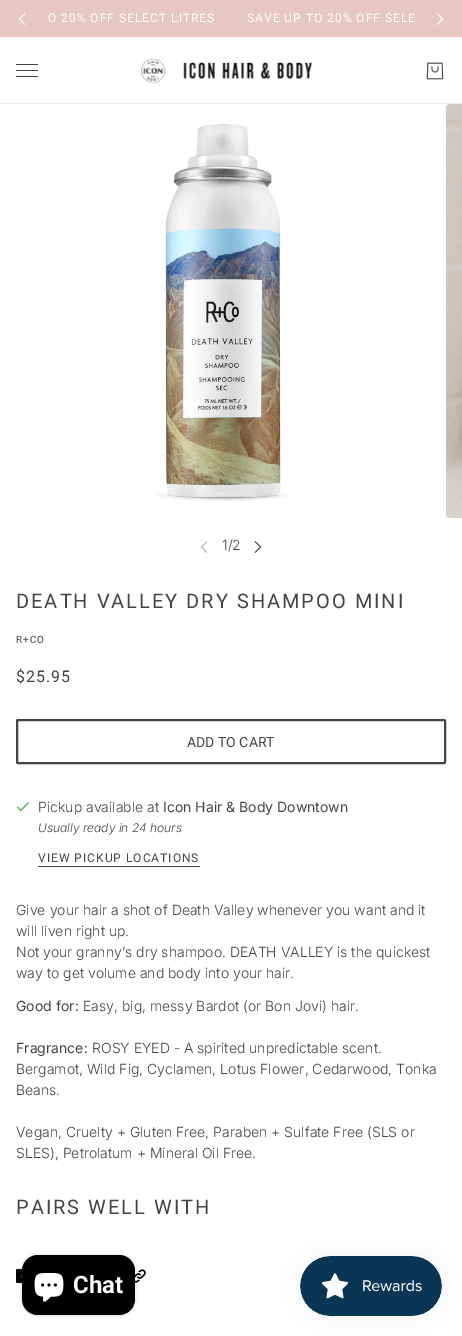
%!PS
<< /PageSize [462 1336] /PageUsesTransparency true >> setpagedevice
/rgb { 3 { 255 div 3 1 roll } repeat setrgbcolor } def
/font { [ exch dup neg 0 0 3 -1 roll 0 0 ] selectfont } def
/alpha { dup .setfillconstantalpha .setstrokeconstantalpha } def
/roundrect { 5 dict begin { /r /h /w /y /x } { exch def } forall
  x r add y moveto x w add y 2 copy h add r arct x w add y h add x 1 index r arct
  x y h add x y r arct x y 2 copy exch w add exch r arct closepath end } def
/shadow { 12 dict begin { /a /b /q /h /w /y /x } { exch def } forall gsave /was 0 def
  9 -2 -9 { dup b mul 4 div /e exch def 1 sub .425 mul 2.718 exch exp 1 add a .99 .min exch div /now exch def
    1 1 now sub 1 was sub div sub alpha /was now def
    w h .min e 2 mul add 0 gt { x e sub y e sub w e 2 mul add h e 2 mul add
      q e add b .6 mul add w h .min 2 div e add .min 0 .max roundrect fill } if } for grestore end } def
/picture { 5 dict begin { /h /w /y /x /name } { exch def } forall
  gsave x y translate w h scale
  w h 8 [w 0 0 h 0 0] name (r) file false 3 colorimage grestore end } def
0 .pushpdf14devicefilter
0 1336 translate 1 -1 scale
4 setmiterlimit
255 255 255 rgb
0 0 462 1336 rectfill
230 199 194 rgb
0 0 462 37 rectfill
(img/1.rgb) 18 13 8 12 picture
(img/2.rgb) 436 13 8 12 picture
68 68 68 rgb
16 64 22 1 0.5 roundrect fill
16 70 22 1 0.5 roundrect fill
16 76 22 1 0.5 roundrect fill
(img/3.rgb) 141 58 172 26 picture
(img/4.rgb) 426 62 18 18 picture
236 236 236 rgb
0 103 462 1 rectfill
(img/5.rgb) 155 124 136 377 picture
(img/6.rgb) 446 104 16 414 picture
(img/7.rgb) 200 541 8 12 picture
(img/8.rgb) 254 541 8 12 picture
68 68 68 rgb
2 setlinewidth
17 720 428 43 1 roundrect stroke
(img/9.rgb) 16 802 13 10 picture
38 866 162 1 rectfill
(img/10.rgb) 16 1269 7 14 picture
(img/11.rgb) 135 1269 11 14 picture
0 0 0 rgb
22 1255 113 60 16 2.5 0.15 shadow
22 1255 113 60 16 roundrect fill
(img/12.rgb) 34 1273 30 29 picture
300 1256 142 60 30 12.5 0.05 shadow
(img/13.rgb) 300 1256 142 60 picture
/Roboto-Regular 12 font
255 255 255 rgb
48 22 moveto 1 0 (O 20% OFF SELECT LITRES) ashow
247 22 moveto 1 0 (SAVE UP TO 20% OFF SELE) ashow
/Inter-Light 14 font
68 68 68 rgb
222 550 moveto (1/2) show
/Roboto-Regular 20 font
16 608 moveto 2 0 (DEATH VALLEY DRY SHAMPOO MINI) ashow
/Roboto-Regular 10 font
16 643 moveto 1 0 (R+CO) ashow
/Roboto-Regular 16 font
16 682 moveto 1 0 ($25.95) ashow
/Roboto-Regular 14 font
187 747 moveto (ADD TO CART) show
/Inter-Light 14 font
38 812 moveto (Pickup available at) show
/Inter-Regular 14 font
163 812 moveto (Icon Hair & Body Downtown) show
/Inter-LightItalic 12 font
38 832 moveto (Usually ready in 24 hours) show
/Roboto-Regular 12 font
38 862 moveto 1 0 (VIEW PICKUP LOCATIONS) ashow
/Inter-Light 14 font
[
  [(Give your hair a shot of Death Valley whenever you want and it) 16 915]
  [(will liven right up.) 16 936]
  [(Not your granny’s dry shampoo. DEATH VALLEY is the quickest) 16 957]
  [(way to get volume and body into your hair.) 16 978]
] { aload pop moveto show } forall
/Inter-Regular 14 font
16 1011 moveto (Good for:) show
/Inter-Light 14 font
83 1011 moveto (Easy, big, messy Bardot \(or Bon Jovi\) hair.) show
/Inter-Regular 14 font
16 1053 moveto (Fragrance:) show
/Inter-Light 14 font
[
  [(ROSY EYED - A spirited unpredictable scent.) 92 1053]
  [(Bergamot, Wild Fig, Cyclamen, Lotus Flower, Cedarwood, Tonka) 16 1074]
  [(Beans.) 16 1095]
  [(Vegan, Cruelty + Gluten Free, Paraben + Sulfate Free \(SLS or) 16 1137]
  [(SLES\), Petrolatum + Mineral Oil Free.) 16 1158]
] { aload pop moveto show } forall
/Roboto-Regular 20 font
16 1214 moveto 2 0 (PAIRS WELL WITH) ashow
/Roboto-Bold 24 font
255 255 255 rgb
73 1293 moveto (Chat) show
.poppdf14devicefilter showpage
